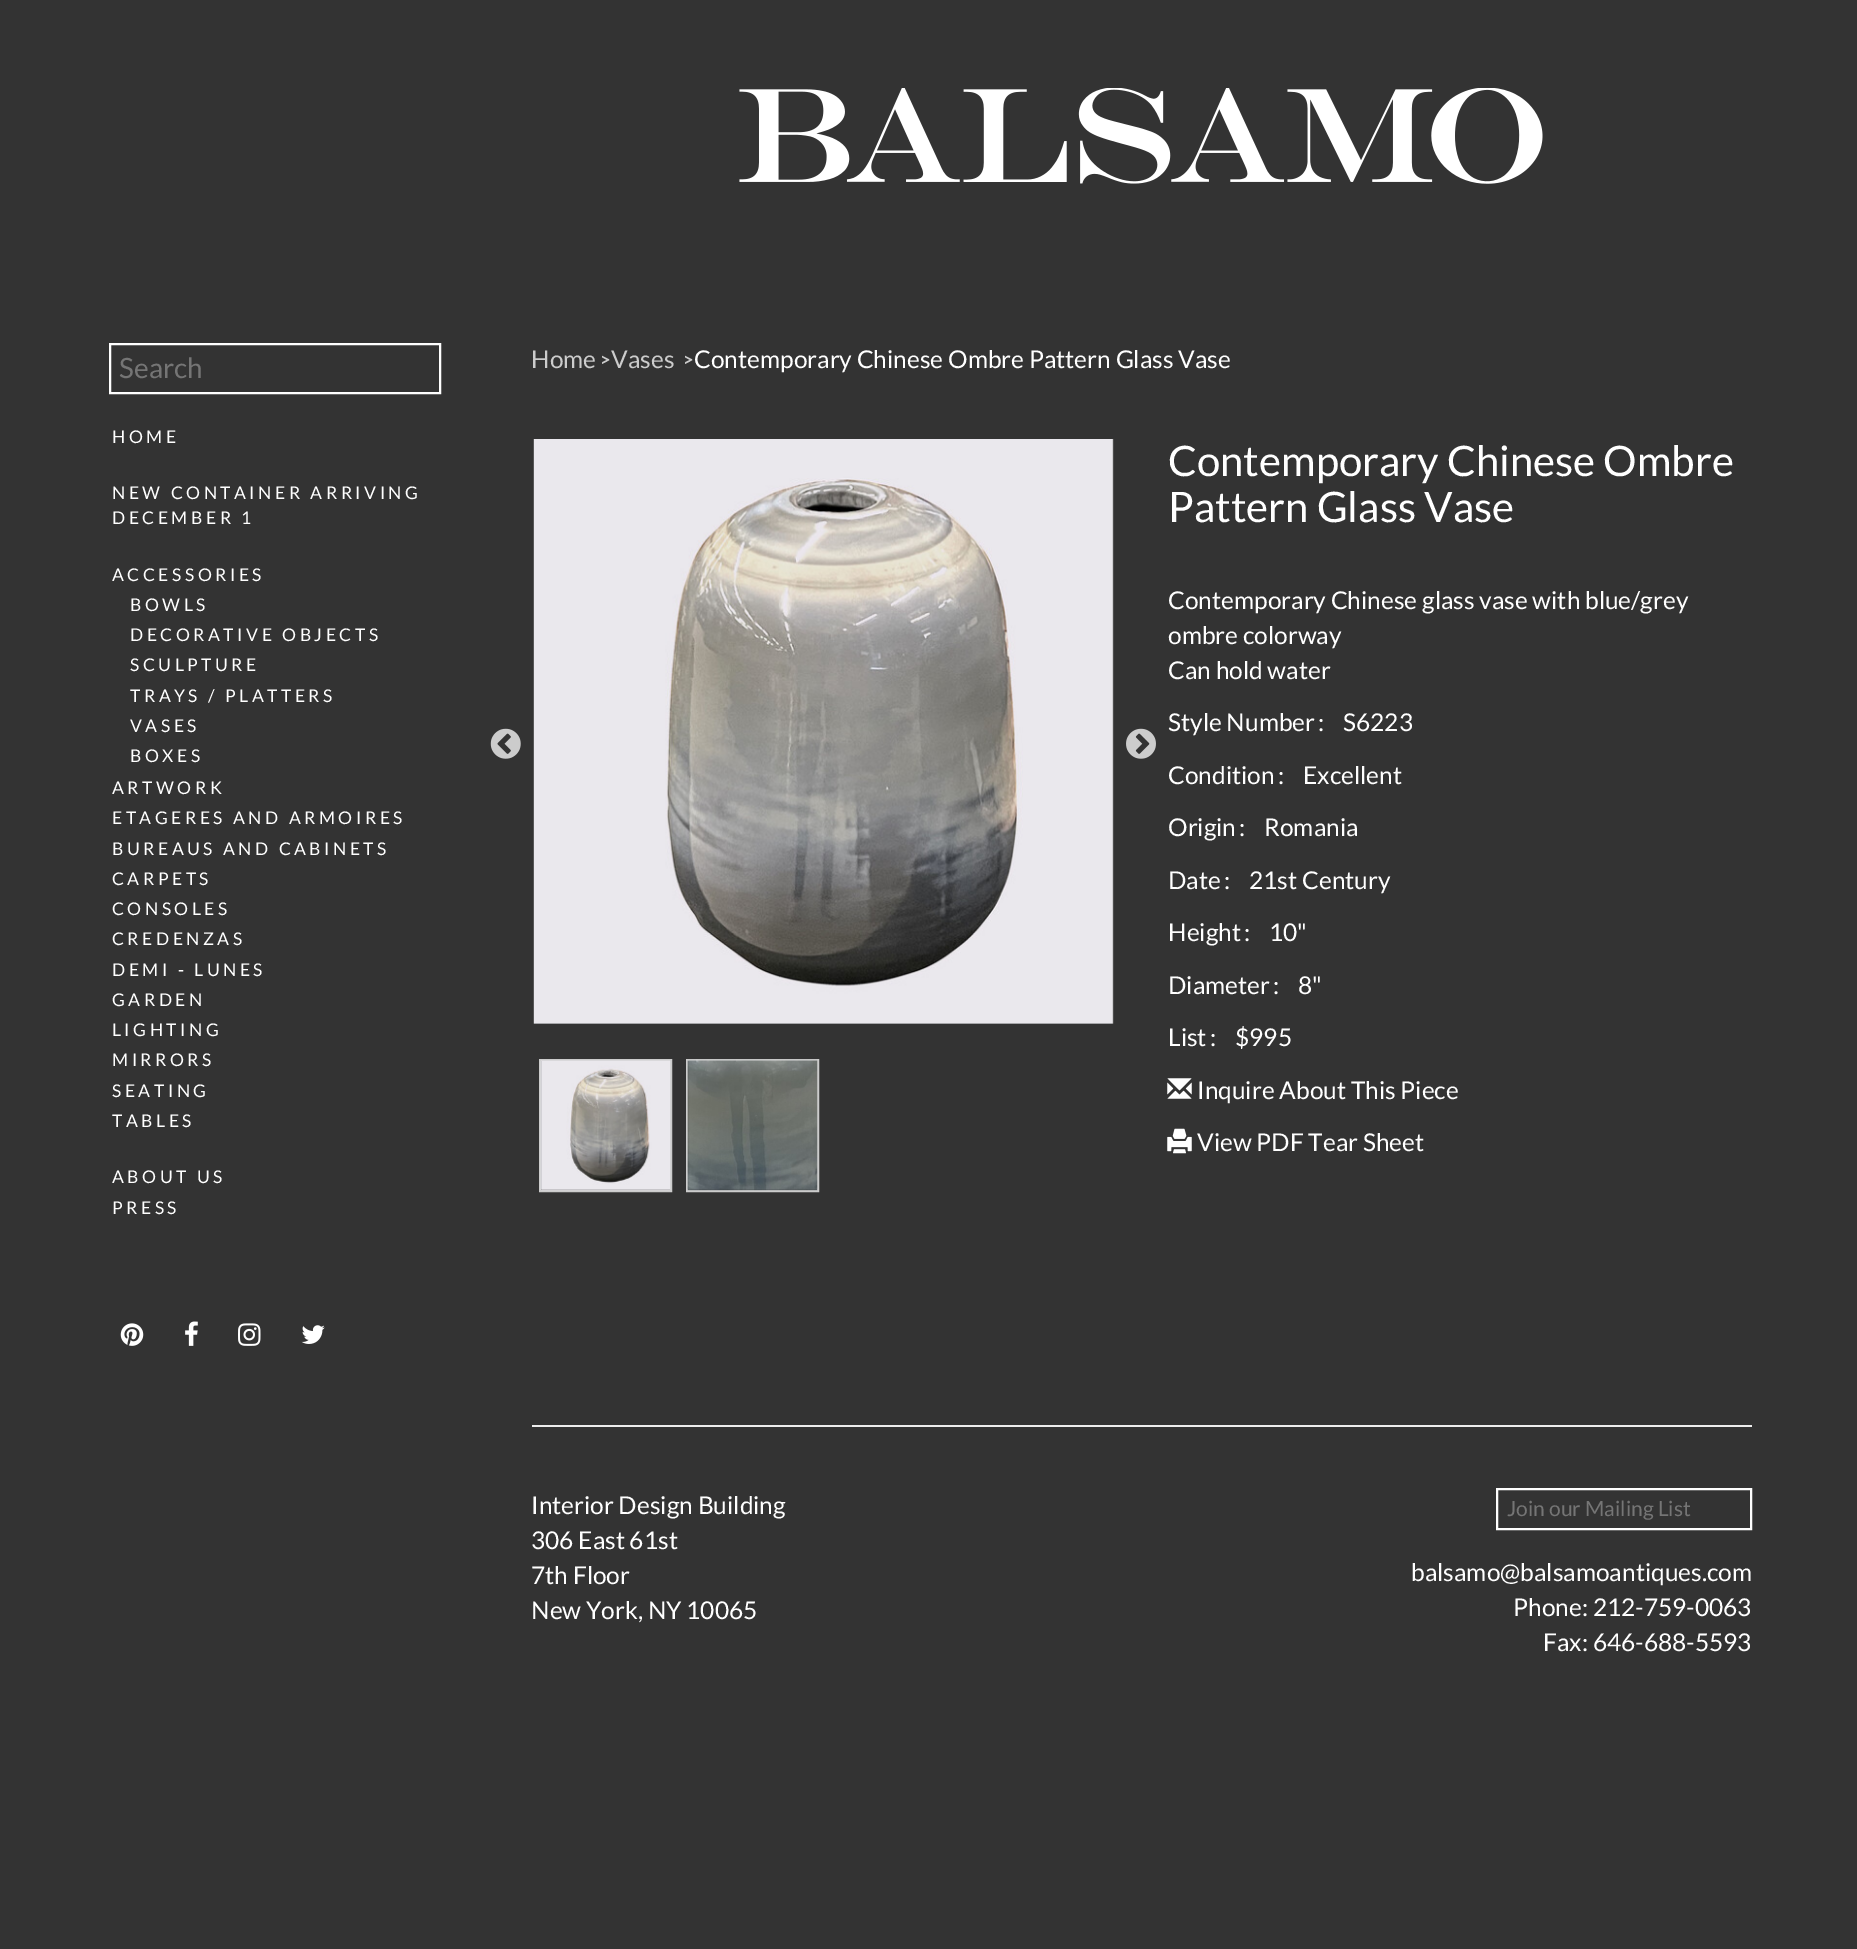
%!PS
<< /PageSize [1857 1949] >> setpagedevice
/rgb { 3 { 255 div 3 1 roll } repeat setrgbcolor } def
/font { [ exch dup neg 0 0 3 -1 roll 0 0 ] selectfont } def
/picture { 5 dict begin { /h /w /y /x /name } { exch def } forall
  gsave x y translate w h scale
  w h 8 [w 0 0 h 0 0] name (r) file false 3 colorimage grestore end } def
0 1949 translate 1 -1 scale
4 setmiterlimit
51 51 51 rgb
0 0 1857 1949 rectfill
(img/1.rgb) 739 88 804 96 picture
255 255 255 rgb
2 setlinewidth
110 344 330 49 rectstroke
(img/2.rgb) 120 1323 24 23 picture
(img/3.rgb) 185 1321 13 25 picture
(img/4.rgb) 238 1323 23 23 picture
(img/5.rgb) 301 1325 24 19 picture
(img/6.rgb) 490 728 31 31 picture
(img/7.rgb) 533 439 581 585 picture
(img/8.rgb) 1126 728 30 31 picture
204 204 204 rgb
540 1060 131 131 rectstroke
(img/9.rgb) 540 1060 131 131 picture
687 1060 131 131 rectstroke
(img/10.rgb) 687 1059 131 132 picture
(img/11.rgb) 1167 1078 25 21 picture
(img/12.rgb) 1167 1128 25 26 picture
238 238 238 rgb
532 1425 1220 2 rectfill
255 255 255 rgb
1497 1489 254 40 rectstroke
/Lato-Regular 28 font
117 117 117 rgb
119 378 moveto (Search) show
/Lato-Regular 17.5 font
255 255 255 rgb
112 443 moveto 3.5 0 (HOME) ashow
112 499 moveto 3.5 0 (NEW CONTAINER ARRIVING) ashow
112 524 moveto 3.5 0 (DECEMBER 1) ashow
112 581 moveto 3.5 0 (ACCESSORIES) ashow
130 611 moveto 3.5 0 (BOWLS) ashow
130 641 moveto 3.5 0 (DECORATIVE OBJECTS) ashow
130 671 moveto 3.5 0 (SCULPTURE) ashow
130 702 moveto 3.5 0 (TRAYS / PLATTERS) ashow
130 732 moveto 3.5 0 (VASES) ashow
130 762 moveto 3.5 0 (BOXES) ashow
112 794 moveto 3.5 0 (ARTWORK) ashow
112 824 moveto 3.5 0 (ETAGERES AND ARMOIRES) ashow
112 855 moveto 3.5 0 (BUREAUS AND CABINETS) ashow
112 885 moveto 3.5 0 (CARPETS) ashow
112 915 moveto 3.5 0 (CONSOLES) ashow
112 945 moveto 3.5 0 (CREDENZAS) ashow
112 976 moveto 3.5 0 (DEMI - LUNES) ashow
112 1006 moveto 3.5 0 (GARDEN) ashow
112 1036 moveto 3.5 0 (LIGHTING) ashow
112 1066 moveto 3.5 0 (MIRRORS) ashow
112 1097 moveto 3.5 0 (SEATING) ashow
112 1127 moveto 3.5 0 (TABLES) ashow
112 1183 moveto 3.5 0 (ABOUT US) ashow
112 1214 moveto 3.5 0 (PRESS) ashow
/Lato-Regular 24.5 font
204 204 204 rgb
531 368 moveto (Home) show
/Lato-Bold 17.5 font
600 366 moveto (>) show
/Lato-Regular 24.5 font
611 368 moveto (Vases) show
/Lato-Bold 17.5 font
683 366 moveto (>) show
/Lato-Regular 24.5 font
255 255 255 rgb
694 368 moveto (Contemporary Chinese Ombre Pattern Glass Vase) show
/Lato-Regular 42 font
1168 476 moveto (Contemporary Chinese Ombre) show
1168 522 moveto (Pattern Glass Vase) show
/Lato-Regular 24.5 font
[
  [(Contemporary Chinese glass vase with blue/grey) 1168 609]
  [(ombre colorway) 1168 644]
  [(Can hold water) 1168 679]
  [(Style Number) 1168 731]
  [(:) 1318 731]
  [(S6223) 1343 731]
  [(Condition) 1168 784]
  [(:) 1278 784]
  [(Excellent) 1303 784]
  [(Origin) 1168 836]
  [(:) 1239 836]
  [(Romania) 1264 836]
  [(Date) 1168 889]
  [(:) 1224 889]
  [(21st Century) 1249 889]
  [(Height) 1168 941]
  [(:) 1244 941]
  [(10") 1269 941]
  [(Diameter) 1168 994]
  [(:) 1273 994]
  [(8") 1298 994]
  [(List) 1168 1046]
  [(:) 1210 1046]
  [($995) 1235 1046]
  [(Inquire About This Piece) 1197 1099]
  [(View PDF Tear Sheet) 1197 1151]
  [(Interior Design Building) 531 1514]
  [(306 East 61st) 531 1549]
  [(7th Floor) 531 1584]
  [(New York, NY 10065) 531 1619]
] { aload pop moveto show } forall
/Lato-Regular 21 font
117 117 117 rgb
1507 1516 moveto (Join our Mailing List) show
/Lato-Regular 24.5 font
255 255 255 rgb
[
  [(balsamo@balsamoantiques.com) 1411 1581]
  [(Phone: 212-759-0063) 1513 1616]
  [(Fax: 646-688-5593) 1543 1651]
] { aload pop moveto show } forall
showpage
